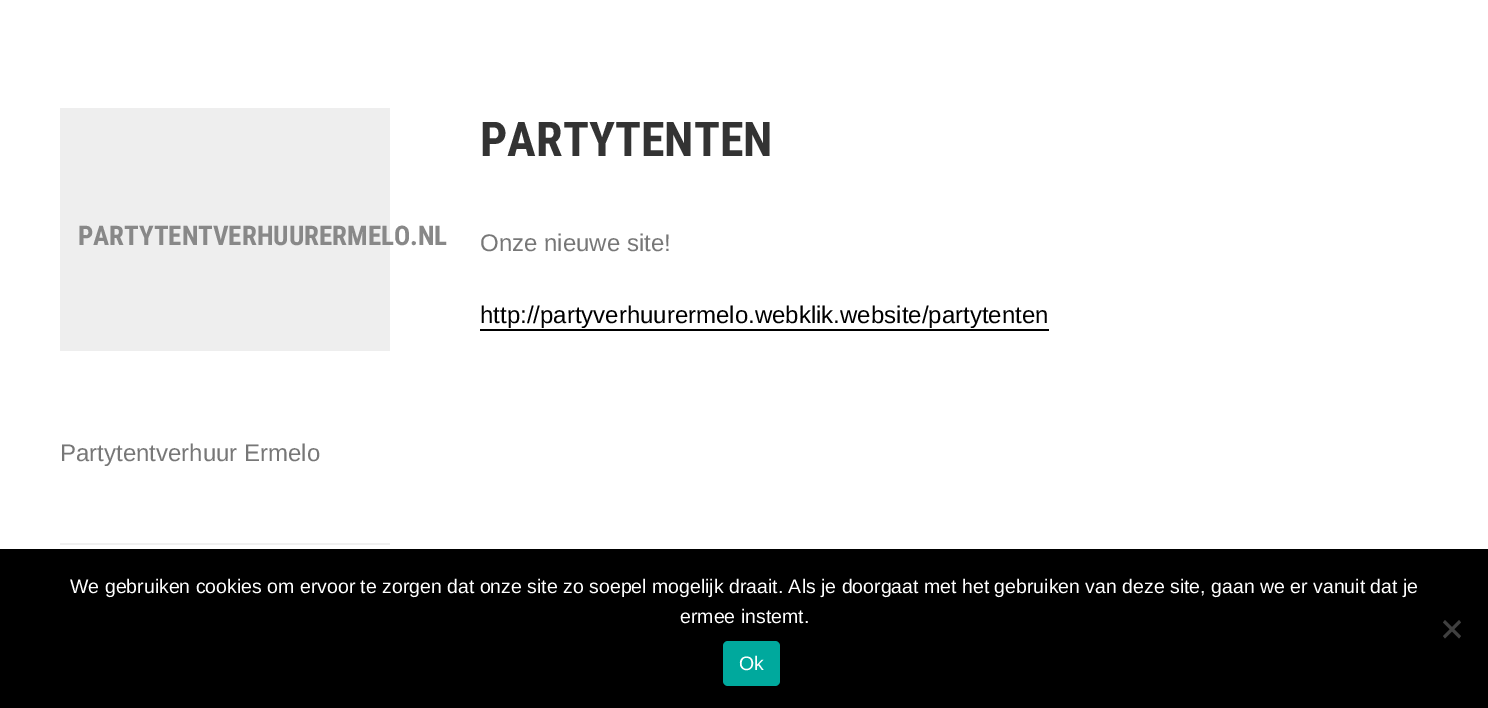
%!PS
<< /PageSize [1488 708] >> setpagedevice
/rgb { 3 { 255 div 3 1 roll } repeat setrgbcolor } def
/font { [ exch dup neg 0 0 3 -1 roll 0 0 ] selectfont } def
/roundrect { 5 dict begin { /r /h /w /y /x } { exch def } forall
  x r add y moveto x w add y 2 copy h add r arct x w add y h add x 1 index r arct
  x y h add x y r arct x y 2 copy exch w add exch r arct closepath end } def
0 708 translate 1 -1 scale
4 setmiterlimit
255 255 255 rgb
0 0 1488 708 rectfill
[
  [60 108 330 243 238 238 238]
  [60 543 330 2 240 240 240]
  [480 329 569 2 0 0 0]
  [0 549 1488 159 0 0 0]
] { aload pop rgb rectfill } forall
64 64 64 rgb
1459 620 moveto 1461 622.5 lineto 1445 638.5 lineto 1443 636 lineto closepath fill
1443 622.5 moveto 1445 620 lineto 1461 636 lineto 1459 638.5 lineto closepath fill
0 169 157 rgb
723 641 57 45 5 roundrect fill
/RobotoCondensed-Bold 27 font
136 136 136 rgb
78 245 moveto (PARTYTENTVERHUURERMELO.NL) show
/Arimo-Regular 24 font
119 119 119 rgb
60 461 moveto (Partytentverhuur Ermelo) show
/RobotoCondensed-Bold 48 font
51 51 51 rgb
480 156 moveto (PARTYTENTEN) show
/Arimo-Regular 24 font
119 119 119 rgb
480 251 moveto (Onze nieuwe site!) show
0 0 0 rgb
480 323 moveto (http://partyverhuurermelo.webklik.website/partytenten) show
/LiberationSans-Regular 19.5 font
255 255 255 rgb
[
  [(We gebruiken cookies om ervoor te zorgen dat onze site zo soepel mogelijk draait. Als je doorgaat met het gebruiken van deze site, gaan we er vanuit dat je) 70 593]
  [(ermee instemt.) 680 623]
  [(Ok) 739 670]
] { aload pop moveto show } forall
showpage
